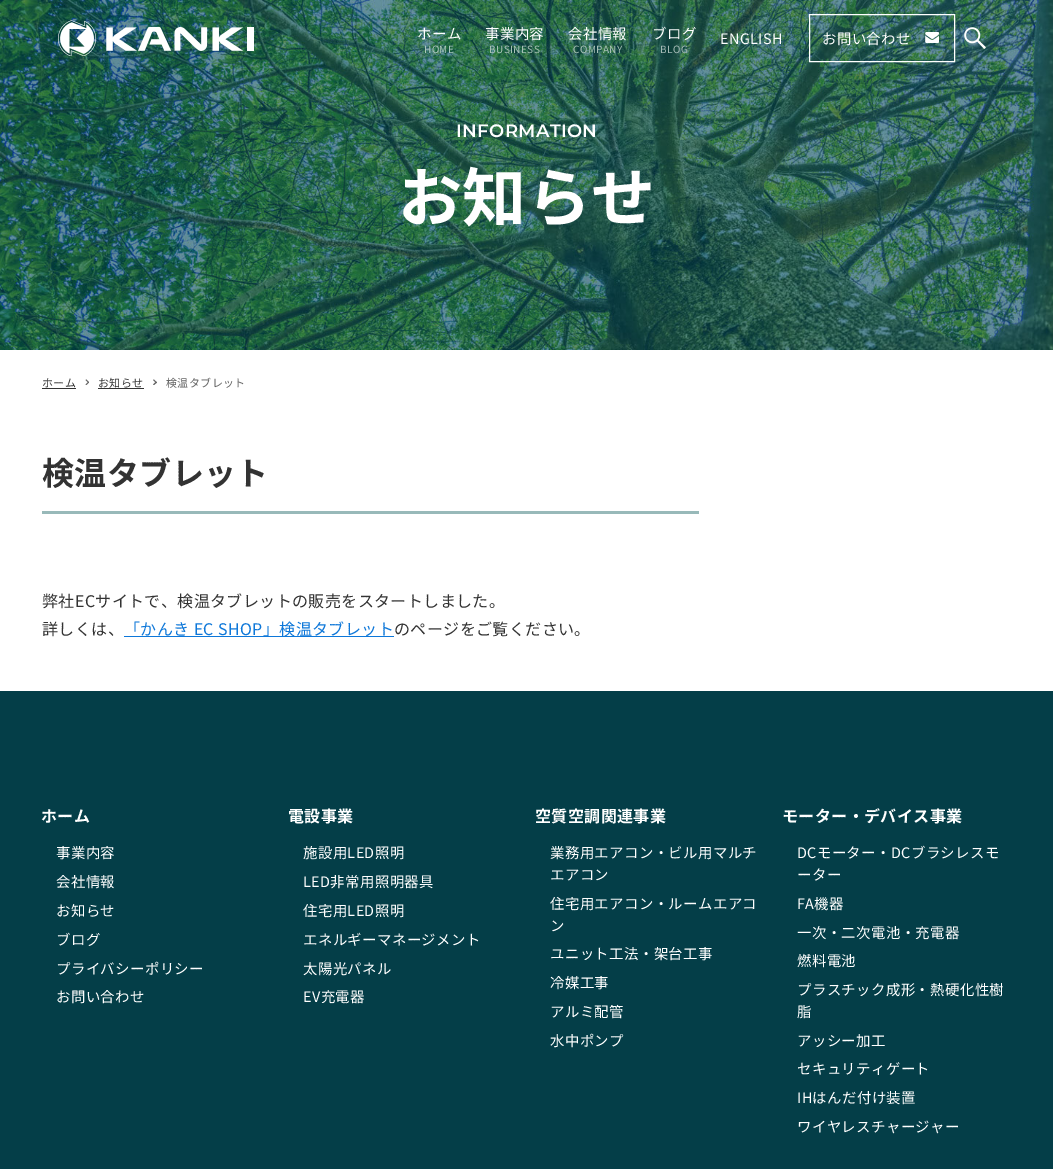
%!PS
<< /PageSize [1053 1169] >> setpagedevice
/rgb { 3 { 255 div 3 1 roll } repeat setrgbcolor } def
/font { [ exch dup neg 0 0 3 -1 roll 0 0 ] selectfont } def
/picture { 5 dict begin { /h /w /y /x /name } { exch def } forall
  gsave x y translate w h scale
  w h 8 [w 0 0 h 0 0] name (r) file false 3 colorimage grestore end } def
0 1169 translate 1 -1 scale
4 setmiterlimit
255 255 255 rgb
0 0 1053 1169 rectfill
(img/4.rgb) 0 0 1053 350 picture
(img/1.rgb) 58 20 196 36 picture
809.5 14.5 145 47 rectstroke
(img/2.rgb) 925 32 14 11 picture
(img/3.rgb) 964 27 22 22 picture
51 51 51 rgb
42 388 34 1 rectfill
102 102 102 rgb
86.5 379.5 moveto 89 382.5 lineto 88.5 383 lineto 85.5 380 lineto closepath fill
88.5 381.5 moveto 89 382.5 lineto 86.5 385 lineto 85.5 384.5 lineto closepath fill
51 51 51 rgb
98 388 46 1 rectfill
102 102 102 rgb
154 379.5 moveto 157 382.5 lineto 156 383 lineto 153 380 lineto closepath fill
156 381.5 moveto 157 382.5 lineto 154 385 lineto 153 384.5 lineto closepath fill
[
  [42 511 657 3 152 185 185]
  [124 636 270 1 13 119 217]
  [0 691 1053 478 4 62 72]
] { aload pop rgb rectfill } forall
/NotoSansJP-Regular 14.4 font
255 255 255 rgb
417 39 moveto 0.4 0 (ホーム) ashow
/NotoSansJP-Regular 10 font
172 198 189 rgb
424 53 moveto 0.4 0 (HOME) ashow
/NotoSansJP-Regular 14.4 font
255 255 255 rgb
485 39 moveto 0.4 0 (事業内容) ashow
/NotoSansJP-Regular 10 font
168 193 183 rgb
489 53 moveto 0.4 0 (BUSINESS) ashow
/NotoSansJP-Regular 14.4 font
255 255 255 rgb
568 39 moveto 0.4 0 (会社情報) ashow
/NotoSansJP-Regular 10 font
168 193 183 rgb
573 53 moveto 0.4 0 (COMPANY) ashow
/NotoSansJP-Regular 14.4 font
255 255 255 rgb
652 39 moveto 0.4 0 (ブログ) ashow
/NotoSansJP-Regular 10 font
165 186 182 rgb
660 53 moveto 0.4 0 (BLOG) ashow
/NotoSansJP-Regular 14.4 font
255 255 255 rgb
720 44 moveto 0.4 0 (ENGLISH) ashow
822 44 moveto 0.4 0 (お問い合わせ) ashow
/Montserrat-SemiBold 18 font
456 137 moveto 0.4 0 (INFORMATION) ashow
/NotoSansJP-Bold 64 font
398 221 moveto 0.4 0 (お知らせ) ashow
/NotoSansJP-Regular 11 font
51 51 51 rgb
42 387 moveto 0.4 0 (ホーム) ashow
98 387 moveto 0.4 0 (お知らせ) ashow
102 102 102 rgb
166 387 moveto 0.4 0 (検温タブレット) ashow
/NotoSansJP-Bold 32 font
51 51 51 rgb
42 485 moveto 0.4 0 (検温タブレット) ashow
/NotoSansJP-Regular 16 font
42 607 moveto 0.4 0 (弊社ECサイトで、検温タブレットの販売をスタートしました。) ashow
42 635 moveto 0.4 0 (詳しくは、) ashow
13 119 217 rgb
124 635 moveto 0.4 0 (「かんき EC SHOP」検温タブレット) ashow
51 51 51 rgb
394 635 moveto 0.4 0 (のページをご覧ください。) ashow
/NotoSansJP-Bold 16 font
255 255 255 rgb
41 822 moveto 0.4 0 (ホーム) ashow
/NotoSansJP-Regular 14.4 font
56 858 moveto 0.4 0 (事業内容) ashow
56 887 moveto 0.4 0 (会社情報) ashow
56 916 moveto 0.4 0 (お知らせ) ashow
56 945 moveto 0.4 0 (ブログ) ashow
56 974 moveto 0.4 0 (プライバシーポリシー) ashow
56 1002 moveto 0.4 0 (お問い合わせ) ashow
/NotoSansJP-Bold 16 font
288 822 moveto 0.4 0 (電設事業) ashow
/NotoSansJP-Regular 14.4 font
303 858 moveto 0.4 0 (施設用LED照明) ashow
303 887 moveto 0.4 0 (LED非常用照明器具) ashow
303 916 moveto 0.4 0 (住宅用LED照明) ashow
303 945 moveto 0.4 0 (エネルギーマネージメント) ashow
303 974 moveto 0.4 0 (太陽光パネル) ashow
303 1002 moveto 0.4 0 (EV充電器) ashow
/NotoSansJP-Bold 16 font
535 822 moveto 0.4 0 (空質空調関連事業) ashow
/NotoSansJP-Regular 14.4 font
550 858 moveto 0.4 0 (業務用エアコン・ビル用マルチ) ashow
550 880 moveto 0.4 0 (エアコン) ashow
550 909 moveto 0.4 0 (住宅用エアコン・ルームエアコ) ashow
550 931 moveto 0.4 0 (ン) ashow
550 959 moveto 0.4 0 (ユニット工法・架台工事) ashow
550 988 moveto 0.4 0 (冷媒工事) ashow
550 1017 moveto 0.4 0 (アルミ配管) ashow
550 1046 moveto 0.4 0 (水中ポンプ) ashow
/NotoSansJP-Bold 16 font
782 822 moveto 0.4 0 (モーター・デバイス事業) ashow
/NotoSansJP-Regular 14.4 font
797 858 moveto 0.4 0 (DCモーター・DCブラシレスモ) ashow
797 880 moveto 0.4 0 (ーター) ashow
797 909 moveto 0.4 0 (FA機器) ashow
797 938 moveto 0.4 0 (一次・二次電池・充電器) ashow
797 966 moveto 0.4 0 (燃料電池) ashow
797 995 moveto 0.4 0 (プラスチック成形・熱硬化性樹) ashow
797 1017 moveto 0.4 0 (脂) ashow
797 1046 moveto 0.4 0 (アッシー加工) ashow
797 1074 moveto 0.4 0 (セキュリティゲート) ashow
797 1103 moveto 0.4 0 (IHはんだ付け装置) ashow
797 1132 moveto 0.4 0 (ワイヤレスチャージャー) ashow
showpage
